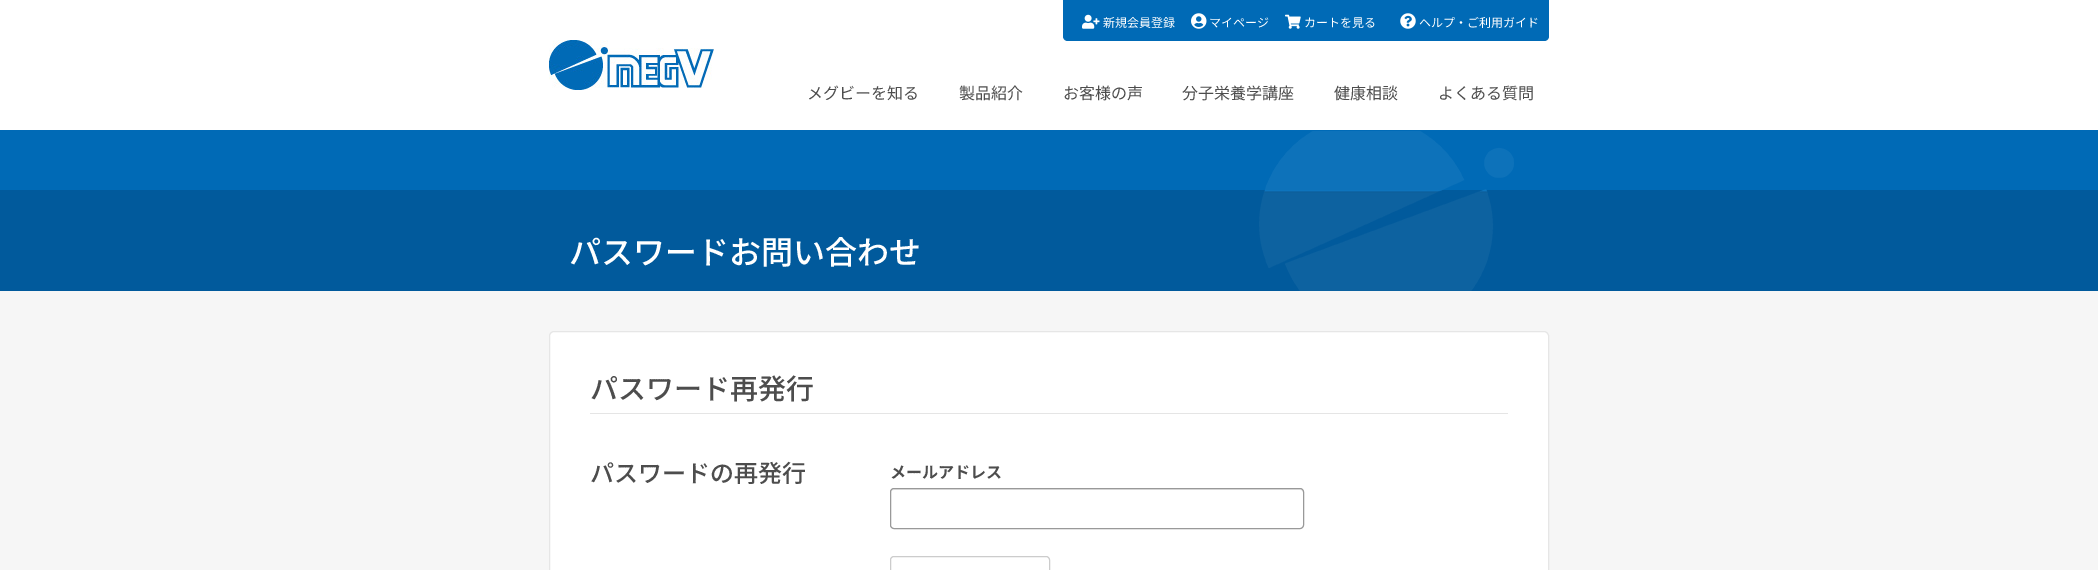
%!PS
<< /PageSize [2098 570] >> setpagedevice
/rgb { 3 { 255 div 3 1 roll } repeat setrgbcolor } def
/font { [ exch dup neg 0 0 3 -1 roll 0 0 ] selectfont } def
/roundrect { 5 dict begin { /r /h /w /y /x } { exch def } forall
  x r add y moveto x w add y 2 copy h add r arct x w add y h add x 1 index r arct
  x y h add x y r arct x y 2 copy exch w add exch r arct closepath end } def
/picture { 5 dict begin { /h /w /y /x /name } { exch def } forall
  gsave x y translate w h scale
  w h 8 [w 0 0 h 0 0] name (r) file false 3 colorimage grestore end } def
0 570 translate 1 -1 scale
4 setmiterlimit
246 246 246 rgb
0 0 2098 570 rectfill
255 255 255 rgb
0 0 2098 130 rectfill
(img/1.rgb) 549 40 165 50 picture
0 106 182 rgb
1063 0 moveto 1549 0 lineto 1549 36 lineto 1549 39 1547 41 1544 41 curveto 1068 41 lineto 1065 41 1063 39 1063 36 curveto closepath fill
(img/2.rgb) 1082 14 18 15 picture
(img/3.rgb) 1191 13 16 16 picture
(img/4.rgb) 1285 14 16 15 picture
(img/5.rgb) 1400 13 16 16 picture
0 130 2098 60 rectfill
1 90 156 rgb
0 190 2098 101 rectfill
(img/6.rgb) 1259 131 255 160 picture
255 255 255 rgb
549.5 331.5 999 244 4.5 roundrect gsave fill grestore
230 230 230 rgb
stroke
229 229 229 rgb
590 413 918 1 rectfill
236 236 236 rgb
894 490 moveto 1300 490 lineto 1302 490 1303 491 1303 493 curveto 1303 491 1302 489 1300 489 curveto 894 489 lineto 892 489 891 491 891 493 curveto 891 491 892 490 894 490 curveto closepath fill
153 153 153 rgb
890.5 488.5 413 40 3.5 roundrect stroke
204 204 204 rgb
890.5 556.5 159 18 3.5 roundrect stroke
/NotoSansCJKJP-Regular 12 font
255 255 255 rgb
[
  [(新規会員登録) 1103 27]
  [(マイページ) 1209 27]
  [(カートを見る) 1304 27]
  [(ヘルプ・ご利用ガイド) 1419 27]
] { aload pop moveto show } forall
/NotoSansCJKJP-Regular 16 font
77 77 77 rgb
[
  [(メグビーを知る) 807 99]
  [(製品紹介) 959 99]
  [(お客様の声) 1063 99]
  [(分子栄養学講座) 1182 99]
  [(健康相談) 1334 99]
  [(よくある質問) 1438 99]
] { aload pop moveto show } forall
/NotoSansCJKJP-Medium 32 font
255 255 255 rgb
569 264 moveto (パスワードお問い合わせ) show
/NotoSansCJKJP-Medium 28 font
77 77 77 rgb
590 399 moveto (パスワード再発行) show
/NotoSansCJKJP-Medium 24 font
590 482 moveto (パスワードの再発行) show
/NotoSansCJKJP-Bold 16 font
890 478 moveto (メールアドレス) show
showpage
